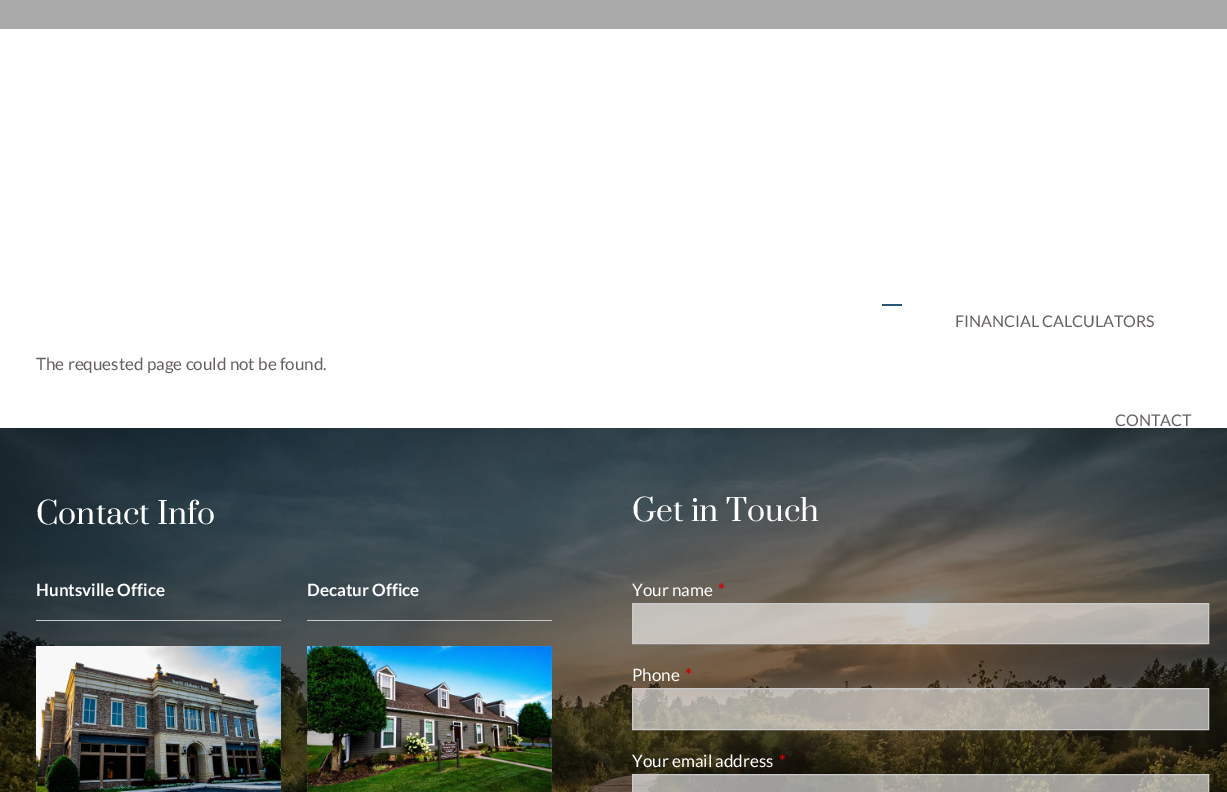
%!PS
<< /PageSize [1227 792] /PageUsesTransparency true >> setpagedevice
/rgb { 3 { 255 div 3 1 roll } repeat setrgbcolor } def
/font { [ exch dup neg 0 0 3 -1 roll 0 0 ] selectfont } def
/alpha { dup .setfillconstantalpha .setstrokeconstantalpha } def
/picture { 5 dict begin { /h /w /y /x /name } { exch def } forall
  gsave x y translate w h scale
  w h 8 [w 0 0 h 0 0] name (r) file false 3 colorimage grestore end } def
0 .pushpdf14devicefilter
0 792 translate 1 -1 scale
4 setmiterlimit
255 255 255 rgb
0 0 1227 792 rectfill
170 170 170 rgb
0 0 1227 29 rectfill
42 86 117 rgb
882 304 20 2 rectfill
(img/1.rgb) 0 428 1227 364 picture
202 202 202 rgb
36 620 245 1 rectfill
(img/2.rgb) 36 646 245 146 picture
307 620 245 1 rectfill
(img/3.rgb) 307 646 245 146 picture
0.6 alpha
254 254 254 rgb
632.5 603.5 moveto 1208.5 603.5 lineto 1208.5 643.5 lineto 632.5 643.5 lineto closepath fill
1 alpha
202 202 202 rgb
632.5 603.5 moveto 1208.5 603.5 lineto 1208.5 643.5 lineto 632.5 643.5 lineto closepath stroke
0.6 alpha
254 254 254 rgb
632.5 688.5 moveto 1208.5 688.5 lineto 1208.5 729.5 lineto 632.5 729.5 lineto closepath fill
1 alpha
202 202 202 rgb
632.5 688.5 moveto 1208.5 688.5 lineto 1208.5 729.5 lineto 632.5 729.5 lineto closepath stroke
0.6 alpha
254 254 254 rgb
632.5 774.5 moveto 1208.5 774.5 lineto 1208.5 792.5 lineto 632.5 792.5 lineto closepath fill
1 alpha
202 202 202 rgb
632.5 774.5 moveto 1208.5 774.5 lineto 1208.5 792.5 lineto 632.5 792.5 lineto closepath stroke
/Lato-Regular 17 font
102 96 100 rgb
36 370 moveto (The requested page could not be found.) show
/Lato-Regular 16 font
955 327 moveto (FINANCIAL CALCULATORS) show
1115 426 moveto (CONTACT) show
/Prata-Regular 30 font
255 255 255 rgb
36 524 moveto (Contact Info) show
/Lato-Bold 17 font
36 596 moveto (Huntsville Office) show
307 596 moveto (Decatur Office) show
/Prata-Regular 30 font
632 521 moveto (Get in Touch) show
/Lato-Regular 17 font
632 596 moveto (Your name) show
/Lato-Bold 17 font
204 0 0 rgb
718 596 moveto (*) show
/Lato-Regular 17 font
255 255 255 rgb
632 681 moveto (Phone) show
/Lato-Bold 17 font
204 0 0 rgb
685 681 moveto (*) show
/Lato-Regular 17 font
255 255 255 rgb
632 767 moveto (Your email address) show
/Lato-Bold 17 font
204 0 0 rgb
779 767 moveto (*) show
.poppdf14devicefilter showpage
